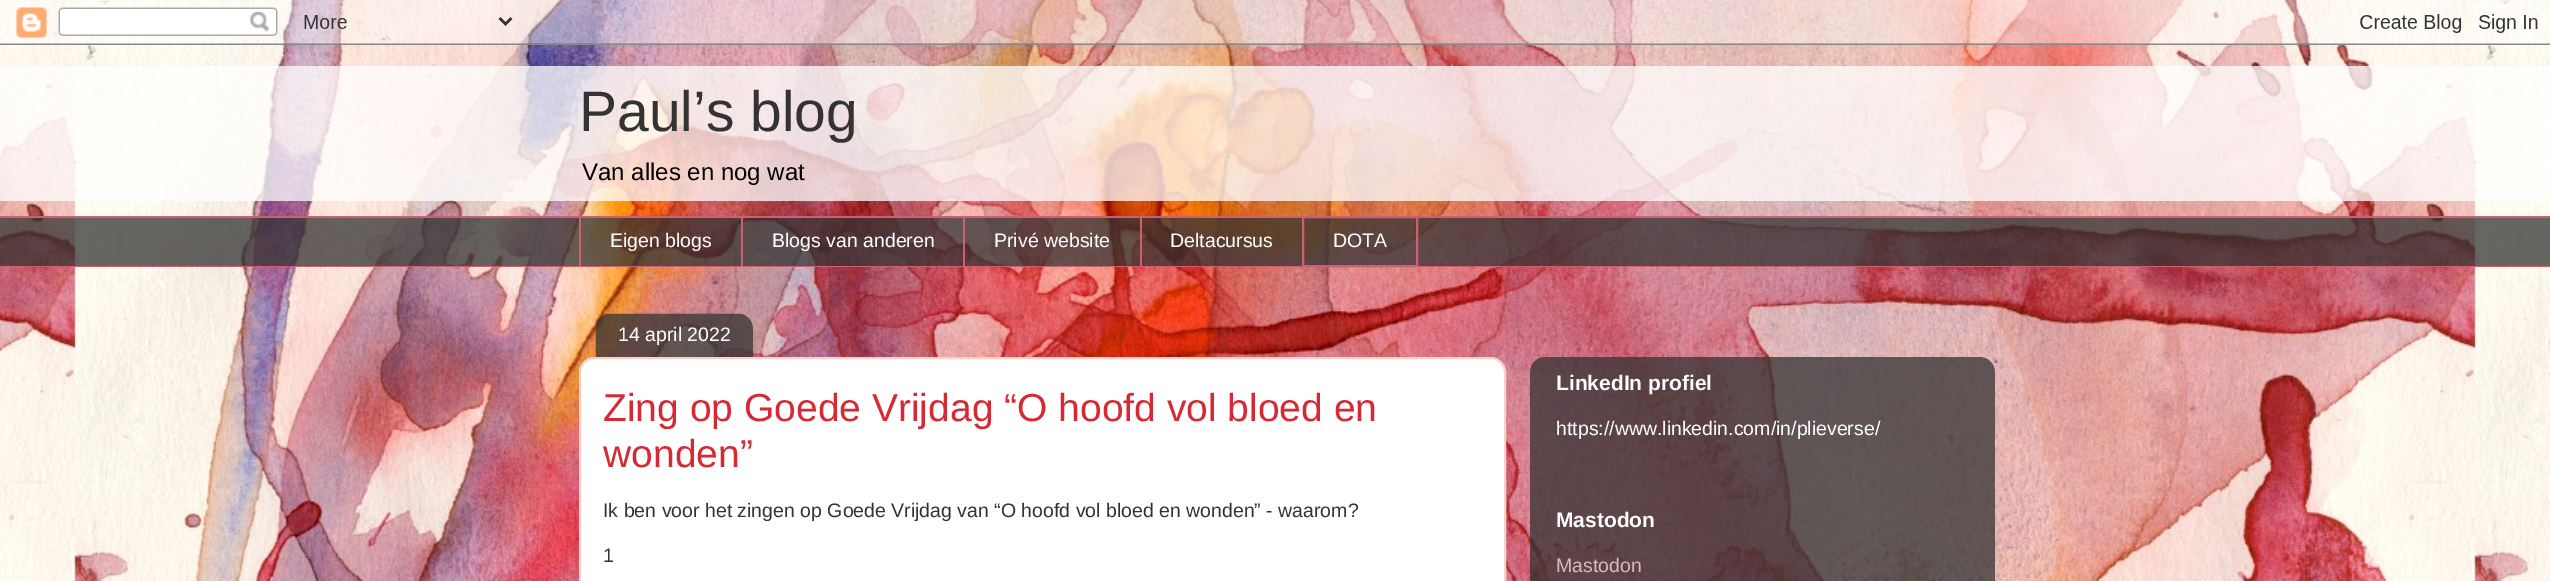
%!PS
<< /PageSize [2550 581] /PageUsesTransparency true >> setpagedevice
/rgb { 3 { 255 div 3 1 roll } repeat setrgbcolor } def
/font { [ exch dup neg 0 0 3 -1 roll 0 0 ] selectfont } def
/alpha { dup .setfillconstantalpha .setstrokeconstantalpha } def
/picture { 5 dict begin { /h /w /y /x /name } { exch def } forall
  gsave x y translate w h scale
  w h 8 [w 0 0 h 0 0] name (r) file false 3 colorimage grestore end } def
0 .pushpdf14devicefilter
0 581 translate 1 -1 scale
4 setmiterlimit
255 255 255 rgb
0 0 2550 581 rectfill
(img/1.rgb) 0 0 2550 581 picture
(img/2.rgb) 0 0 2550 45 picture
0.75 alpha
[
  [0 66 2550 135 255 255 255]
  [0 218 2550 48 51 51 51]
] { aload pop rgb rectfill } forall
1 alpha
[
  [0 216 2550 2 206 95 112]
  [579 216 2 51 206 95 112]
  [741 216 2 51 206 95 112]
  [963 216 2 51 206 95 112]
  [1140 216 2 51 206 95 112]
] { aload pop rgb rectfill } forall
2 setlinewidth
1303 217 114 49 rectstroke
0 266 2550 1 rectfill
255 255 255 rgb
594 358 moveto 1491 358 lineto 1498.5 358 1505 364.5 1505 372 curveto 1505 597 lineto 580 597 lineto 580 372 lineto 580 364.5 586.5 358 594 358 curveto closepath gsave fill grestore
244 211 204 rgb
stroke
(img/3.rgb) 595 313 158 44 picture
(img/4.rgb) 1530 357 465 224 picture
/LiberationSans-Regular 57 font
51 51 51 rgb
579 131 moveto (Paul’s blog) show
/LiberationSans-Regular 24 font
0 0 0 rgb
582 180 moveto (Van alles en nog wat) show
/LiberationSans-Regular 19.5 font
255 255 255 rgb
[
  [(Eigen blogs) 610 247]
  [(Blogs van anderen) 772 247]
  [(Privé website) 994 247]
  [(Deltacursus) 1170 247]
  [(DOTA) 1333 247]
  [(14 april 2022) 618 341]
] { aload pop moveto show } forall
/LiberationSans-Regular 39 font
213 42 51 rgb
603 421 moveto (Zing op Goede Vrijdag “O hoofd vol bloed en) show
603 467 moveto (wonden”) show
/LiberationSans-Regular 19.5 font
51 51 51 rgb
603 517 moveto (Ik ben voor het zingen op Goede Vrijdag van “O hoofd vol bloed en wonden” - waarom?) show
603 562 moveto (1) show
/LiberationSans-Bold 21 font
255 255 255 rgb
1556 390 moveto (LinkedIn profiel) show
/LiberationSans-Regular 19.5 font
1556 435 moveto (https://www.linkedin.com/in/plieverse/) show
/LiberationSans-Bold 21 font
1556 527 moveto (Mastodon) show
/LiberationSans-Regular 19.5 font
218 183 188 rgb
1556 572 moveto (Mastodon) show
.poppdf14devicefilter showpage
